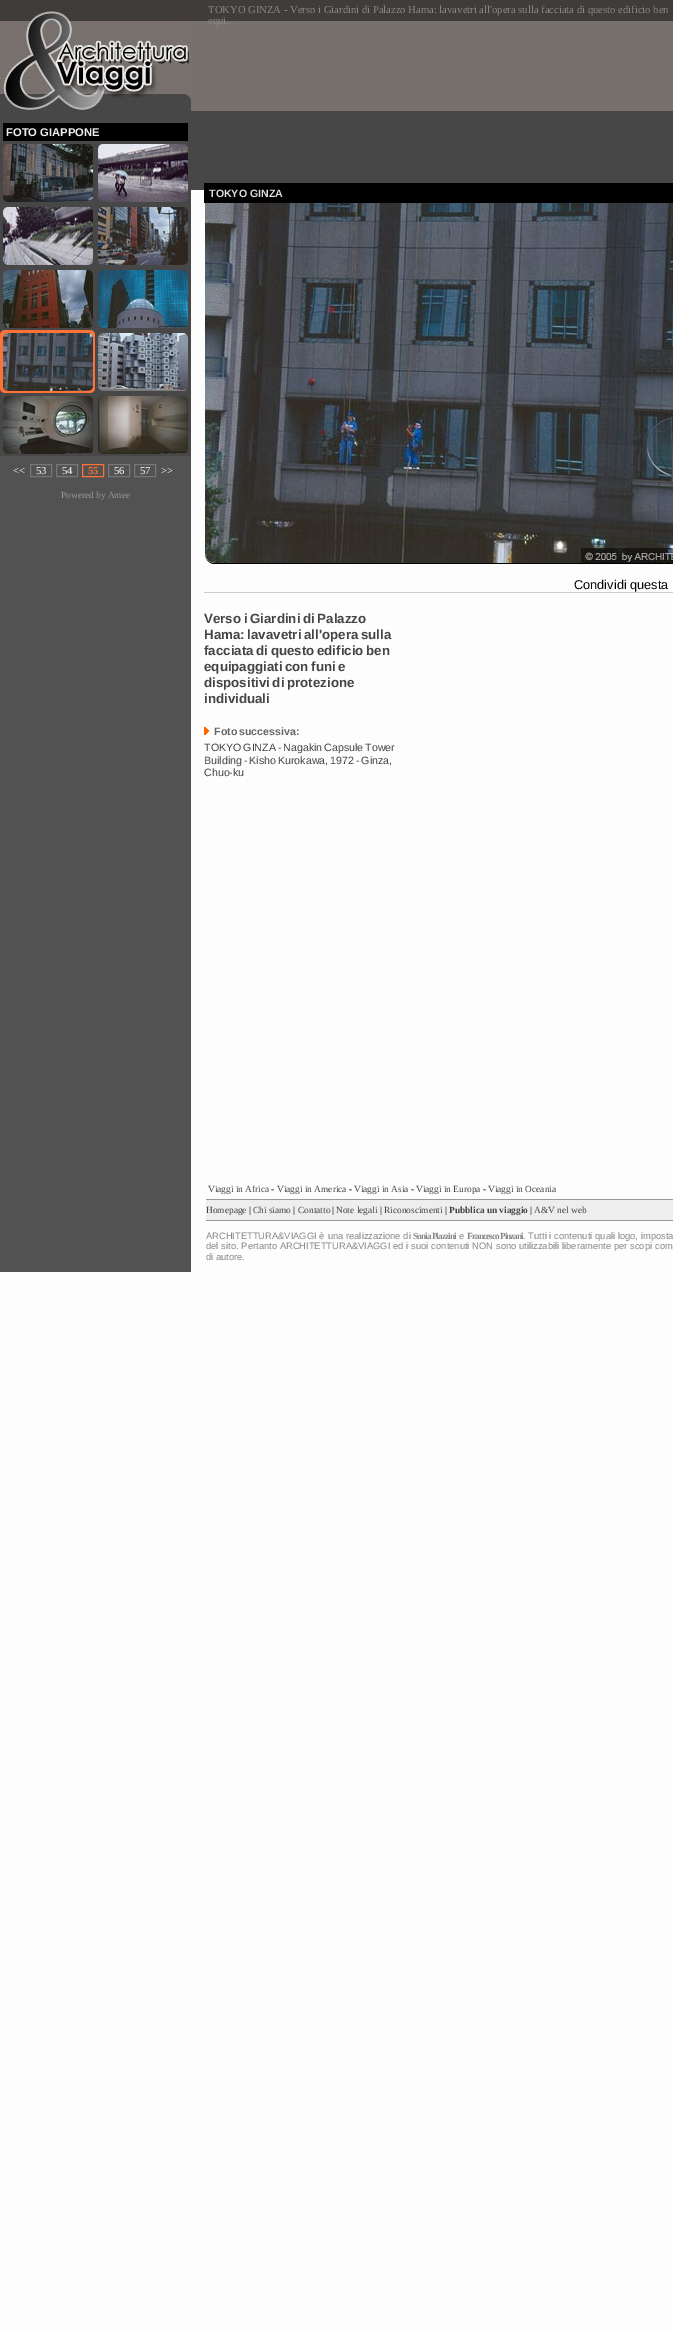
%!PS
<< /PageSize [673 2330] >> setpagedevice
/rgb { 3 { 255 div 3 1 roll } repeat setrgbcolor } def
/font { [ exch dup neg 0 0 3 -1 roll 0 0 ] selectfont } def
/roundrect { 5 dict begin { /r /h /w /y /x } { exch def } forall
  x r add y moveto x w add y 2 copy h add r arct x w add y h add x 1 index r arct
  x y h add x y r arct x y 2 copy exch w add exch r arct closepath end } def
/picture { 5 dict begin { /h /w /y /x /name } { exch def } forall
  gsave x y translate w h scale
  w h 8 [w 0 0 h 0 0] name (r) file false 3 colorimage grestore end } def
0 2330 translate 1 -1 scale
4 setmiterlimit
253 253 253 rgb
0 0 673 2330 rectfill
(img/1.rgb) 191 0 482 190 picture
82 82 82 rgb
0 456 191 816 rectfill
71 71 71 rgb
0 111 191 345 rectfill
(img/2.rgb) 0 0 191 111 picture
0 0 0 rgb
3 123 185 18 rectfill
(img/3.rgb) 3 144 90 58 picture
(img/4.rgb) 98 144 90 58 picture
(img/5.rgb) 3 207 90 58 picture
(img/6.rgb) 98 207 90 58 picture
(img/7.rgb) 3 270 90 58 picture
(img/8.rgb) 98 270 90 58 picture
255 113 54 rgb
0 330 95 63 5 roundrect fill
(img/9.rgb) 3 333 90 58 picture
(img/10.rgb) 98 333 90 58 picture
(img/11.rgb) 3 396 90 58 picture
(img/12.rgb) 98 396 90 58 picture
119 119 119 rgb
30.5 464.5 21 12 rectstroke
56.5 464.5 21 12 rectstroke
255 113 54 rgb
82.5 464.5 21 12 rectstroke
119 119 119 rgb
108.5 464.5 21 12 rectstroke
134.5 464.5 21 12 rectstroke
0 0 0 rgb
204 183 469 20 rectfill
205 203 moveto 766 203 lineto 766 554 lineto 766 560 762 564 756 564 curveto 215 564 lineto 209 564 205 560 205 554 curveto closepath 205 203 moveto 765 203 lineto 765 554 lineto 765 559 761 563 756 563 curveto 215 563 lineto 209 563 205 559 205 554 curveto closepath eofill
(img/13.rgb) 205 203 468 360 picture
204 204 204 rgb
204 592 469 1 rectfill
(img/14.rgb) 204 727 5 8 picture
[
  [206 1199 467 1 153 153 153]
  [206 1200 467 20 238 238 238]
  [206 1220 467 1 153 153 153]
] { aload pop rgb rectfill } forall
/LiberationSerif-Regular 10.65 font
136 136 136 rgb
208 13 moveto (TOKYO GINZA - Verso i Giardini di Palazzo Hama: lavavetri all'opera sulla facciata di questo edificio ben) show
208 24 moveto (equi...) show
/LiberationSans-Bold 11.25 font
238 238 238 rgb
6 136 moveto (FOTO GIAPPONE) show
/LiberationSerif-Regular 10.65 font
252 252 252 rgb
[
  [(<<) 13 474]
  [(53) 36 474]
  [(54) 62 474]
] { aload pop moveto show } forall
/LiberationSerif-Bold 10.65 font
255 113 54 rgb
88 474 moveto (55) show
/LiberationSerif-Regular 10.65 font
252 252 252 rgb
[
  [(56) 114 474]
  [(57) 140 474]
  [(>>) 161 474]
] { aload pop moveto show } forall
/LiberationSerif-Regular 9.35 font
153 153 153 rgb
61 498 moveto (Powered by Amee) show
/LiberationSans-Bold 10.65 font
221 221 221 rgb
209 197 moveto (TOKYO GINZA) show
/LiberationSans-Regular 12.75 font
0 0 0 rgb
574 589 moveto (Condividi questa) show
/LiberationSans-Bold 13.3 font
68 68 68 rgb
204 623 moveto -1 0 32 (Verso i Giardini di Palazzo) widthshow
204 639 moveto -1 0 32 (Hama: lavavetri all'opera sulla) widthshow
204 655 moveto -1 0 32 (facciata di questo edificio ben) widthshow
204 671 moveto -1 0 32 (equipaggiati con funi e) widthshow
204 687 moveto -1 0 32 (dispositivi di protezione) widthshow
204 703 moveto (individuali) show
/LiberationSans-Bold 10.65 font
102 102 102 rgb
214 735 moveto -1 0 32 (Foto successiva:) widthshow
/LiberationSans-Regular 10.65 font
68 68 68 rgb
204 751 moveto -1 0 32 (TOKYO GINZA - Nagakin Capsule Tower) widthshow
204 764 moveto -1 0 32 (Building - Kisho Kurokawa, 1972 - Ginza,) widthshow
204 776 moveto (Chuo-ku) show
/LiberationSerif-Regular 9.35 font
208 1192 moveto (Viaggi in Africa) show
0 0 0 rgb
271 1192 moveto (-) show
68 68 68 rgb
277 1192 moveto (Viaggi in America) show
0 0 0 rgb
349 1192 moveto (-) show
68 68 68 rgb
354 1192 moveto (Viaggi in Asia) show
0 0 0 rgb
411 1192 moveto (-) show
68 68 68 rgb
416 1192 moveto (Viaggi in Europa) show
0 0 0 rgb
483 1192 moveto (-) show
68 68 68 rgb
488 1192 moveto (Viaggi in Oceania) show
206 1213 moveto (Homepage) show
0 0 0 rgb
249 1213 moveto (|) show
68 68 68 rgb
253 1213 moveto (Chi siamo) show
0 0 0 rgb
293 1213 moveto (|) show
68 68 68 rgb
298 1213 moveto (Contatto) show
0 0 0 rgb
332 1213 moveto (|) show
68 68 68 rgb
336 1213 moveto (Note legali) show
0 0 0 rgb
380 1213 moveto (|) show
68 68 68 rgb
384 1213 moveto (Riconoscimenti) show
0 0 0 rgb
445 1213 moveto (|) show
/LiberationSerif-Bold 9.35 font
68 68 68 rgb
449 1213 moveto (Pubblica un viaggio) show
/LiberationSerif-Regular 9.35 font
0 0 0 rgb
530 1213 moveto (|) show
68 68 68 rgb
534 1213 moveto (A&V nel web) show
/LiberationSans-Regular 9.35 font
136 136 136 rgb
206 1239 moveto 0.25 0 32 (ARCHITETTURA&VIAGGI è una realizzazione di) widthshow
/LiberationSerif-Bold 9.35 font
413 1239 moveto -1 0 (Sonia Piazzini) ashow
/LiberationSans-Regular 9.35 font
459 1239 moveto (e) show
/LiberationSerif-Bold 9.35 font
467 1239 moveto -1 0 (Francesco Pinzani) ashow
/LiberationSans-Regular 9.35 font
523 1239 moveto 0.25 0 32 (. Tutti i contenuti quali logo, imposta) widthshow
206 1249 moveto 0.3 0 32 (del sito. Pertanto ARCHITETTURA&VIAGGI ed i suoi contenuti NON sono utilizzabili liberamente per scopi com) widthshow
206 1260 moveto (di autore.) show
showpage
